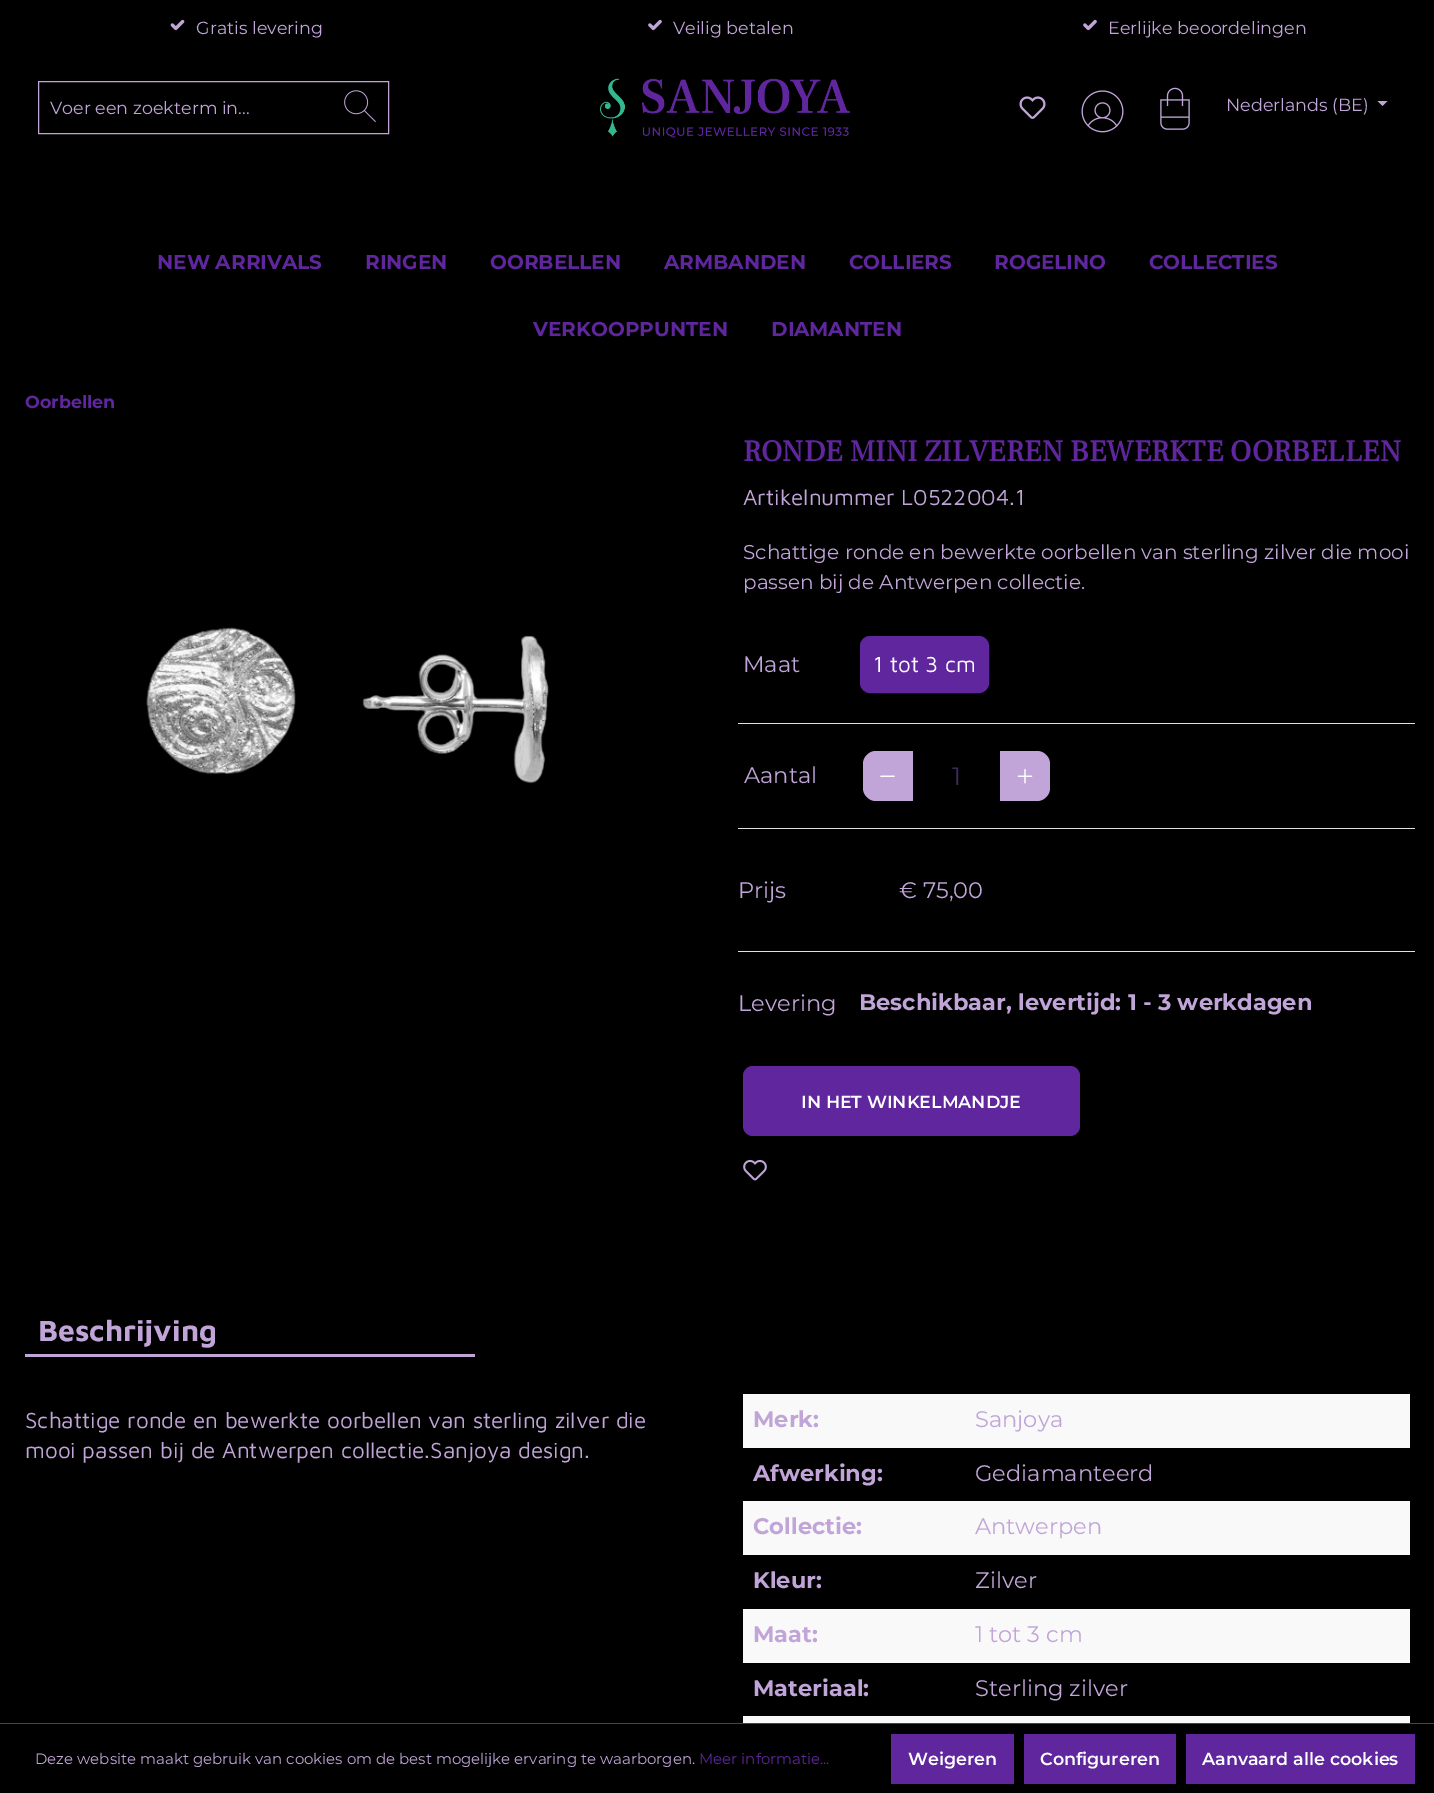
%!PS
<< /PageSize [1434 1793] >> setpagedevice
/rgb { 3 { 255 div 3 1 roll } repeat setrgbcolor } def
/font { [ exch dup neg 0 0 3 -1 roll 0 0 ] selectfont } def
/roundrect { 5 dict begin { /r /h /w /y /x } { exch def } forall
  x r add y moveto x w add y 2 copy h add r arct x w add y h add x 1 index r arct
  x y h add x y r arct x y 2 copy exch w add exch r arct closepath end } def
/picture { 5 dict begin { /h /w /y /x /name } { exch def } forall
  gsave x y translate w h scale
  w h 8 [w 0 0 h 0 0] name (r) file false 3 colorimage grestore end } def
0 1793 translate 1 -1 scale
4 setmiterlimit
0 0 0 rgb
0 0 1434 1793 rectfill
(img/1.rgb) 170 19 15 12 picture
(img/2.rgb) 648 19 14 12 picture
(img/2.rgb) 1083 19 14 12 picture
193 165 216 rgb
38.5 81.5 350 52 rectstroke
(img/3.rgb) 344 90 32 33 picture
(img/4.rgb) 600 78 250 60 picture
(img/5.rgb) 1019 96 27 23 picture
(img/6.rgb) 1081 90 43 43 picture
(img/7.rgb) 1160 87 30 43 picture
1377.5 101 moveto 1387.5 101 lineto 1382.5 106 lineto closepath fill
(img/8.rgb) 146 627 403 157 picture
96 38 158 rgb
861.5 637.5 126 54 8.5 roundrect gsave fill grestore
3 setlinewidth
stroke
224 224 224 rgb
738 723 677 1 rectfill
738 828 677 1 rectfill
193 165 216 rgb
876 751 moveto 913 751 lineto 913 801 lineto 876 801 lineto 869 801 863 795 863 788 curveto 863 764 lineto 863 757 869 751 876 751 curveto closepath fill
(img/9.rgb) 880 775 15 2 picture
1000 751 moveto 1037 751 lineto 1044 751 1050 757 1050 764 curveto 1050 788 lineto 1050 795 1044 801 1037 801 curveto 1000 801 lineto closepath fill
(img/10.rgb) 1017 769 16 15 picture
224 224 224 rgb
738 951 677 1 rectfill
96 38 158 rgb
743 1066 337 70 10 roundrect fill
(img/11.rgb) 743 1159 24 22 picture
[
  [25 1354 450 3 193 165 216]
  [743 1394 667 54 249 249 249]
  [743 1501 667 54 249 249 249]
  [743 1609 667 54 249 249 249]
  [743 1716 667 7 249 249 249]
  [0 1723 1434 1 96 38 158]
  [891 1734 123 50 96 38 158]
  [1024 1734 152 50 96 38 158]
  [1186 1734 229 50 96 38 158]
] { aload pop rgb rectfill } forall
/Montserrat-Regular 17.5 font
193 165 216 rgb
[
  [(Gratis levering) 196 34]
  [(Veilig betalen) 673 34]
  [(Eerlijke beoordelingen) 1108 34]
  [(Voer een zoekterm in...) 50 114]
  [(Nederlands \(BE\)) 1226 111]
] { aload pop moveto show } forall
/Montserrat-Bold 20 font
96 38 158 rgb
[
  [(NEW ARRIVALS) 157 269]
  [(RINGEN) 365 269]
  [(OORBELLEN) 490 269]
  [(ARMBANDEN) 664 269]
  [(COLLIERS) 849 269]
  [(ROGELINO) 994 269]
  [(COLLECTIES) 1149 269]
  [(VERKOOPPUNTEN) 533 336]
  [(DIAMANTEN) 771 336]
] { aload pop moveto show } forall
/Montserrat-Bold 17.5 font
25 408 moveto (Oorbellen) show
/FrankRuhlLibre-Bold 30 font
743 461 moveto (RONDE MINI ZILVEREN BEWERKTE OORBELLEN) show
/MavenPro-Regular 22.5 font
193 165 216 rgb
743 505 moveto (Artikelnummer L0522004.1) show
/Montserrat-Regular 20 font
743 559 moveto (Schattige ronde en bewerkte oorbellen van sterling zilver die mooi) show
743 589 moveto (passen bij de Antwerpen collectie.) show
/Montserrat-Regular 22.5 font
743 672 moveto (Maat) show
/MavenPro-Regular 22.5 font
255 255 255 rgb
873 672 moveto (1 tot 3 cm) show
/Montserrat-Regular 22.5 font
193 165 216 rgb
744 783 moveto (Aantal) show
/Montserrat-Regular 25 font
63 42 85 rgb
952 785 moveto (1) show
/Montserrat-Regular 22.5 font
193 165 216 rgb
[
  [(Prijs) 738 898]
  [(€ 75,00) 899 898]
  [(Levering) 738 1011]
] { aload pop moveto show } forall
/Montserrat-Bold 22.5 font
859 1010 moveto (Beschikbaar, levertijd: 1 - 3 werkdagen) show
/Montserrat-SemiBold 17.5 font
255 255 255 rgb
801 1108 moveto (IN HET WINKELMANDJE) show
/MavenPro-Bold 30 font
193 165 216 rgb
38 1341 moveto (Beschrijving) show
/MavenPro-Regular 22.5 font
25 1428 moveto (Schattige ronde en bewerkte oorbellen van sterling zilver die) show
25 1458 moveto (mooi passen bij de Antwerpen collectie.Sanjoya design.) show
/Montserrat-Bold 22.5 font
753 1427 moveto (Merk:) show
/Montserrat-Regular 22.5 font
975 1427 moveto (Sanjoya) show
/Montserrat-Bold 22.5 font
753 1481 moveto (Afwerking:) show
/Montserrat-Regular 22.5 font
975 1481 moveto (Gediamanteerd) show
/Montserrat-Bold 22.5 font
753 1534 moveto (Collectie:) show
/Montserrat-Regular 22.5 font
975 1534 moveto (Antwerpen) show
/Montserrat-Bold 22.5 font
753 1588 moveto (Kleur:) show
/Montserrat-Regular 22.5 font
975 1588 moveto (Zilver) show
/Montserrat-Bold 22.5 font
753 1642 moveto (Maat:) show
/Montserrat-Regular 22.5 font
975 1642 moveto (1 tot 3 cm) show
/Montserrat-Bold 22.5 font
753 1696 moveto (Materiaal:) show
/Montserrat-Regular 22.5 font
975 1696 moveto (Sterling zilver) show
/Montserrat-Regular 15 font
35 1764 moveto (Deze website maakt gebruik van cookies om de best mogelijke ervaring te waarborgen.) show
96 38 158 rgb
699 1764 moveto (Meer informatie...) show
/Montserrat-SemiBold 17.5 font
255 255 255 rgb
[
  [(Weigeren) 908 1765]
  [(Configureren) 1040 1765]
  [(Aanvaard alle cookies) 1202 1765]
] { aload pop moveto show } forall
showpage
